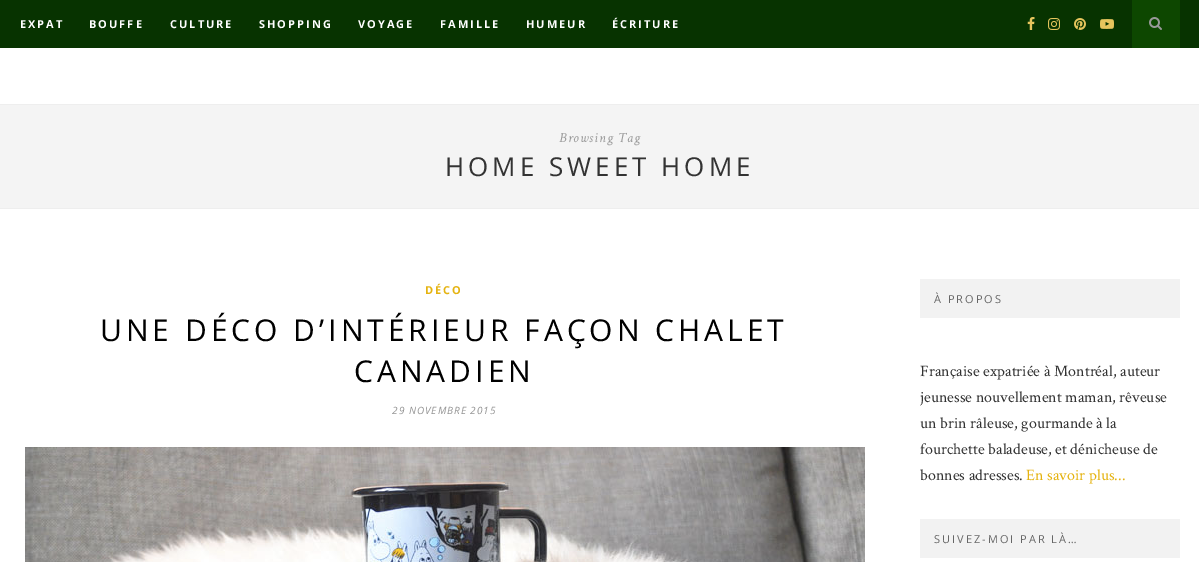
%!PS
<< /PageSize [1199 562] >> setpagedevice
/rgb { 3 { 255 div 3 1 roll } repeat setrgbcolor } def
/font { [ exch dup neg 0 0 3 -1 roll 0 0 ] selectfont } def
/picture { 5 dict begin { /h /w /y /x /name } { exch def } forall
  gsave x y translate w h scale
  w h 8 [w 0 0 h 0 0] name (r) file false 3 colorimage grestore end } def
0 562 translate 1 -1 scale
4 setmiterlimit
255 255 255 rgb
0 0 1199 562 rectfill
7 51 0 rgb
0 0 1199 48 rectfill
(img/1.rgb) 1027 17 8 13 picture
(img/2.rgb) 1048 18 12 12 picture
(img/3.rgb) 1074 18 12 12 picture
(img/4.rgb) 1100 19 14 10 picture
13 71 0 rgb
1132 0 48 48 rectfill
(img/5.rgb) 1149 17 13 13 picture
[
  [0 104 1199 1 238 238 238]
  [0 105 1199 103 244 244 244]
  [0 208 1199 1 238 238 238]
] { aload pop rgb rectfill } forall
(img/6.rgb) 25 447 840 115 picture
242 242 242 rgb
920 279 260 39 rectfill
920 519 260 39 rectfill
/OpenSans-Bold 11 font
255 255 255 rgb
20 28 moveto 2 0 (EXPAT) ashow
89 28 moveto 2 0 (BOUFFE) ashow
170 28 moveto 2 0 (CULTURE) ashow
259 28 moveto 2 0 (SHOPPING) ashow
358 28 moveto 2 0 (VOYAGE) ashow
440 28 moveto 2 0 (FAMILLE) ashow
526 28 moveto 2 0 (HUMEUR) ashow
612 28 moveto 2 0 (ÉCRITURE) ashow
/CrimsonText-Italic 14 font
153 153 153 rgb
559 142 moveto 1 0 (Browsing Tag) ashow
/OpenSans-Regular 26 font
51 51 51 rgb
445 176 moveto 4 0 (HOME SWEET HOME) ashow
/OpenSans-Bold 11 font
229 179 16 rgb
425 294 moveto 2 0 (DÉCO) ashow
/OpenSans-Regular 30 font
0 0 0 rgb
100 341 moveto 4 0 (UNE DÉCO D’INTÉRIEUR FAÇON CHALET) ashow
354 382 moveto 4 0 (CANADIEN) ashow
/OpenSans-Italic 10 font
147 147 147 rgb
392 414 moveto 1 0 (29 NOVEMBRE 2015) ashow
/OpenSans-Regular 11 font
102 102 102 rgb
934 303 moveto 2 0 (À PROPOS) ashow
/CrimsonText-Regular 16 font
51 51 51 rgb
[
  [(Française expatriée à Montréal, auteur) 920 376]
  [(jeunesse nouvellement maman, rêveuse) 920 402]
  [(un brin râleuse, gourmande à la) 920 428]
  [(fourchette baladeuse, et dénicheuse de) 920 454]
  [(bonnes adresses.) 920 480]
] { aload pop moveto show } forall
229 179 16 rgb
1026 480 moveto (En savoir plus...) show
/OpenSans-Regular 11 font
102 102 102 rgb
934 543 moveto 2 0 (SUIVEZ-MOI PAR LÀ…) ashow
showpage
